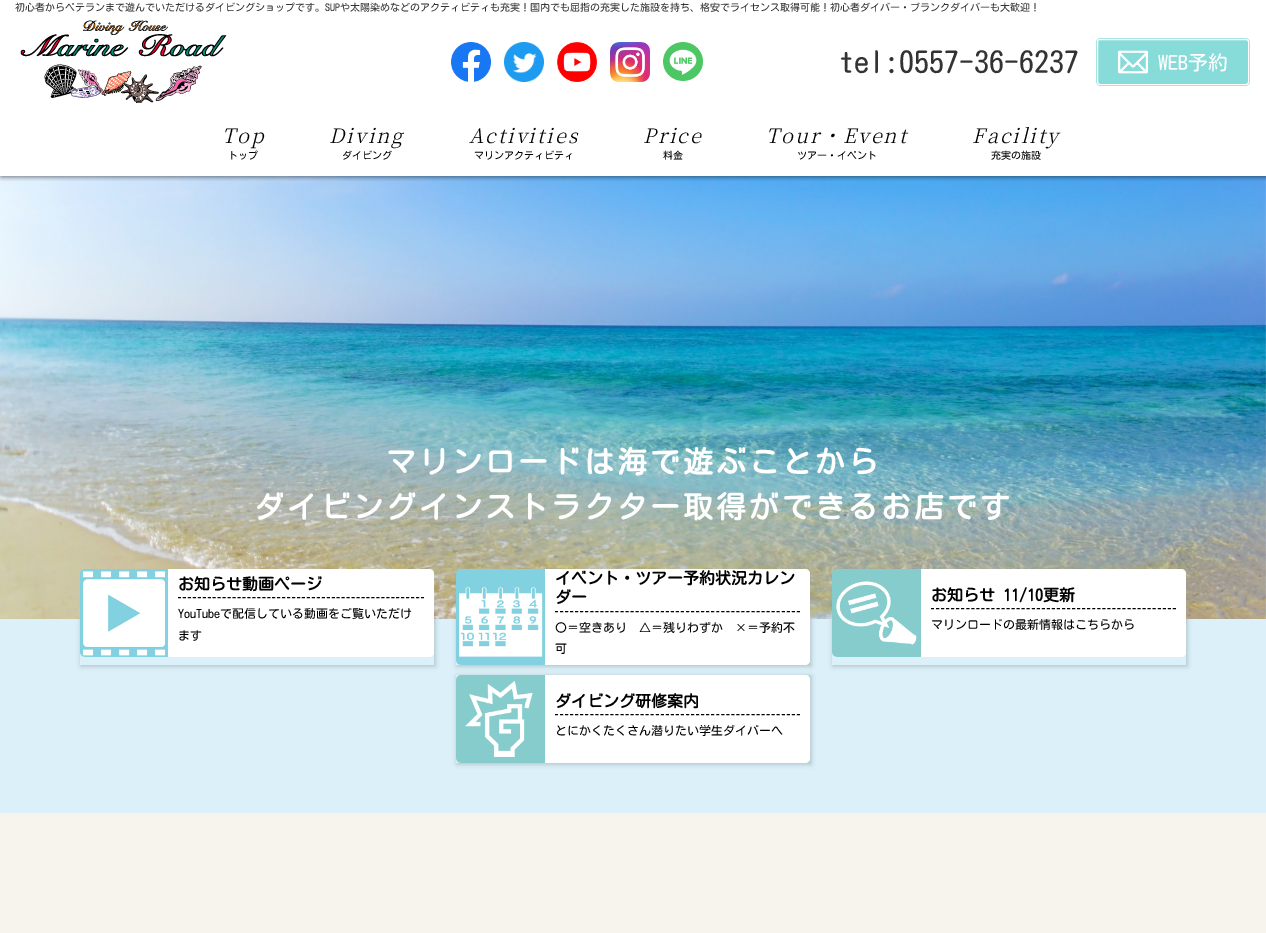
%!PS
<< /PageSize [1266 933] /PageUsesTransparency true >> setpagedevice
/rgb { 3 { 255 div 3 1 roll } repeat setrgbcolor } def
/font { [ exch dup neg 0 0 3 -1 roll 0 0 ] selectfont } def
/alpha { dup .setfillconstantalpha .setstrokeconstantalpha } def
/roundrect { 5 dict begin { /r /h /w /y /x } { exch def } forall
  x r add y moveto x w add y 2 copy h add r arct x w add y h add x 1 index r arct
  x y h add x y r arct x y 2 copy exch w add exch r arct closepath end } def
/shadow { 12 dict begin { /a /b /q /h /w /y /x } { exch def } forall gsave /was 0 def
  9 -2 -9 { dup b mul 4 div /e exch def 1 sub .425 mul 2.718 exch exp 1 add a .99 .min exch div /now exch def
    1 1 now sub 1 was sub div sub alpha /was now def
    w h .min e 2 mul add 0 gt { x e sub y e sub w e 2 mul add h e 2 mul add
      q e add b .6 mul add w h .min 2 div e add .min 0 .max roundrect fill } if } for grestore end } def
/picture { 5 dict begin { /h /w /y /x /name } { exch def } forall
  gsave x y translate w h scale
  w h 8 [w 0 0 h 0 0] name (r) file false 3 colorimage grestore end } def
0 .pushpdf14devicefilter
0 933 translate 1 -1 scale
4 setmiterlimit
255 255 255 rgb
0 0 1266 933 rectfill
219 240 249 rgb
0 569 1266 244 rectfill
gsave
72 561 moveto 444 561 lineto 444 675 lineto 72 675 lineto closepath 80 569 moveto 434 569 lineto 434 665 lineto 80 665 lineto closepath eoclip newpath
0 0 0 rgb
81 570 354 96 0 2.5 0.2 shadow
grestore
0 0 0 rgb
457 570 354 96 0 2.5 0.2 shadow
gsave
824 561 moveto 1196 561 lineto 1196 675 lineto 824 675 lineto closepath 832 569 moveto 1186 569 lineto 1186 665 lineto 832 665 lineto closepath eoclip newpath
833 570 354 96 0 2.5 0.2 shadow
grestore
(img/8.rgb) 0 176 1266 443 picture
gsave
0 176 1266 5 rectclip
1 1 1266 176 0 2.5 0.5 shadow
grestore
(img/1.rgb) 20 20 207 83 picture
(img/2.rgb) 451 42 40 40 picture
(img/3.rgb) 504 42 40 40 picture
(img/4.rgb) 557 42 40 40 picture
(img/5.rgb) 610 42 40 40 picture
(img/6.rgb) 663 42 40 39 picture
135 219 217 rgb
1095.5 37.5 155 49 4.5 roundrect gsave fill grestore
255 255 255 rgb
stroke
1097.5 39.5 151 45 2.5 roundrect stroke
(img/7.rgb) 1118 50 30 24 picture
(img/9.rgb) 80 569 88 88 picture
168 569 moveto 429 569 lineto 432 569 434 571 434 574 curveto 434 652 lineto 434 655 432 657 429 657 curveto 168 657 lineto closepath fill
0 0 0 rgb
[3 1.96] 0 setdash
178 597.5 moveto 424 597.5 lineto stroke
(img/10.rgb) 456 569 89 96 picture
255 255 255 rgb
545 569 moveto 805 569 lineto 808 569 810 571 810 574 curveto 810 660 lineto 810 663 808 665 805 665 curveto 545 665 lineto closepath fill
0 0 0 rgb
[3 2.04] 0 setdash
555 611.5 moveto 800 611.5 lineto stroke
(img/11.rgb) 832 569 89 88 picture
255 255 255 rgb
921 569 moveto 1181 569 lineto 1184 569 1186 571 1186 574 curveto 1186 652 lineto 1186 655 1184 657 1181 657 curveto 921 657 lineto closepath fill
0 0 0 rgb
931 608.5 moveto 1176 608.5 lineto stroke
457 676 354 88 0 2.5 0.2 shadow
(img/12.rgb) 456 675 89 88 picture
255 255 255 rgb
545 675 moveto 805 675 lineto 808 675 810 677 810 680 curveto 810 758 lineto 810 761 808 763 805 763 curveto 545 763 lineto closepath fill
0 0 0 rgb
555 714.5 moveto 800 714.5 lineto stroke
247 244 238 rgb
0 813 1266 120 rectfill
/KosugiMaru-Regular 10 font
51 51 51 rgb
15 11 moveto (初心者からベテランまで遊んでいただけるダイビングショップです。SUPや太陽染めなどのアクティビティも充実！国内でも屈指の充実した施設を持ち、格安でライセンス取得可能！初心者ダイバー・ブランクダイバーも大歓迎！) show
/KosugiMaru-Regular 30 font
839 73 moveto (tel:0557-36-6237) show
/KosugiMaru-Regular 20 font
255 255 255 rgb
1158 70 moveto (WEB予約) show
/NotoSerifJP-ExtraLightItalic 20 font
0 0 0 rgb
222 143 moveto 2 0 (Top) ashow
/KosugiMaru-Regular 10 font
228 159 moveto (トップ) show
/NotoSerifJP-ExtraLightItalic 20 font
329 143 moveto 2 0 (Diving) ashow
/KosugiMaru-Regular 10 font
342 159 moveto (ダイビング) show
/NotoSerifJP-ExtraLightItalic 20 font
469 143 moveto 2 0 (Activities) ashow
/KosugiMaru-Regular 10 font
474 159 moveto (マリンアクティビティ) show
/NotoSerifJP-ExtraLightItalic 20 font
643 143 moveto 2 0 (Price) ashow
/KosugiMaru-Regular 10 font
663 159 moveto (料金) show
/NotoSerifJP-ExtraLightItalic 20 font
766 143 moveto 2 0 (Tour・Event) ashow
/KosugiMaru-Regular 10 font
797 159 moveto (ツアー・イベント) show
/NotoSerifJP-ExtraLightItalic 20 font
972 143 moveto 2 0 (Facility) ashow
/KosugiMaru-Regular 10 font
991 159 moveto (充実の施設) show
/KosugiMaru-Bold 30 font
255 255 255 rgb
386 473 moveto 3 0 (マリンロードは海で遊ぶことから) ashow
254 518 moveto 3 0 (ダイビングインストラクター取得ができるお店です) ashow
/KosugiMaru-Bold 16 font
0 0 0 rgb
178 590 moveto (お知らせ動画ページ) show
/KosugiMaru-Regular 12 font
178 618 moveto (YouTubeで配信している動画をご覧いただけ) show
178 640 moveto (ます) show
/KosugiMaru-Bold 16 font
555 584 moveto (イベント・ツアー予約状況カレン) show
555 603 moveto (ダー) show
/KosugiMaru-Regular 12 font
555 632 moveto (〇＝空きあり　△＝残りわずか　×＝予約不) show
555 653 moveto (可) show
/KosugiMaru-Bold 16 font
931 601 moveto (お知らせ 11/10更新) show
/KosugiMaru-Regular 12 font
931 629 moveto (マリンロードの最新情報はこちらから) show
/KosugiMaru-Bold 16 font
555 707 moveto (ダイビング研修案内) show
/KosugiMaru-Regular 12 font
555 735 moveto (とにかくたくさん潜りたい学生ダイバーへ) show
.poppdf14devicefilter showpage
